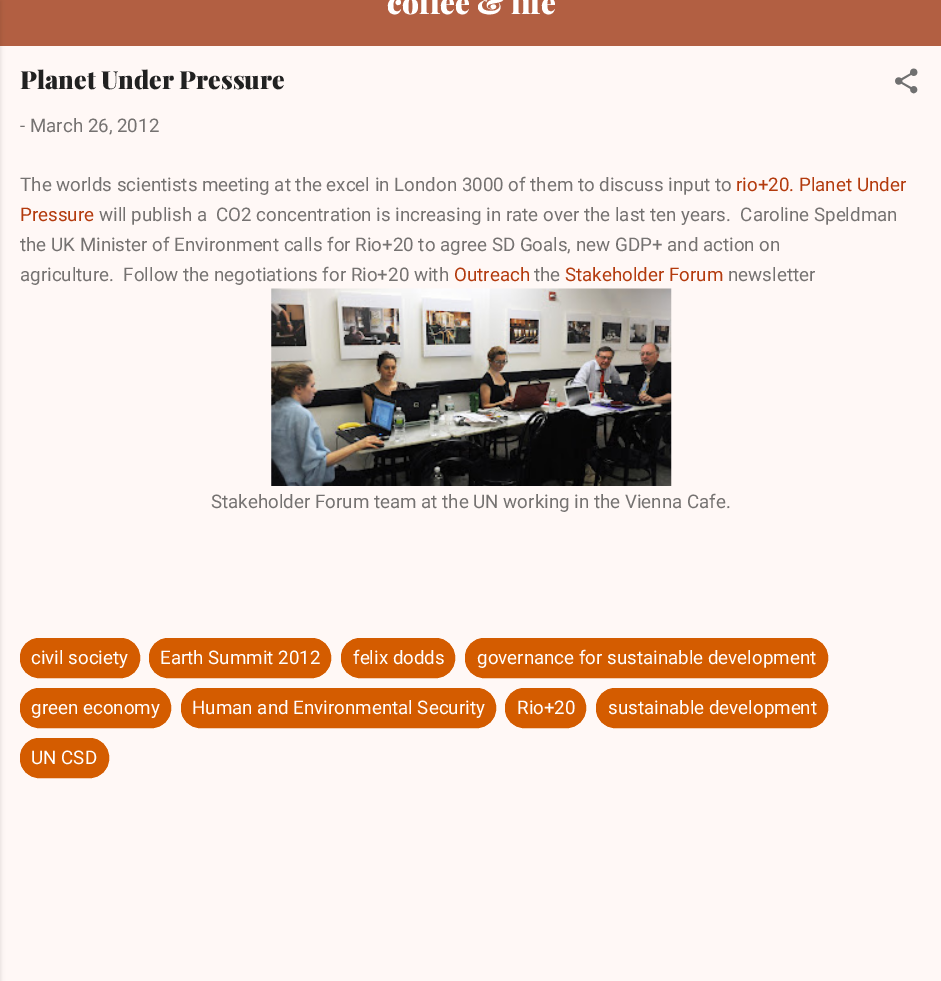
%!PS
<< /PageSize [941 981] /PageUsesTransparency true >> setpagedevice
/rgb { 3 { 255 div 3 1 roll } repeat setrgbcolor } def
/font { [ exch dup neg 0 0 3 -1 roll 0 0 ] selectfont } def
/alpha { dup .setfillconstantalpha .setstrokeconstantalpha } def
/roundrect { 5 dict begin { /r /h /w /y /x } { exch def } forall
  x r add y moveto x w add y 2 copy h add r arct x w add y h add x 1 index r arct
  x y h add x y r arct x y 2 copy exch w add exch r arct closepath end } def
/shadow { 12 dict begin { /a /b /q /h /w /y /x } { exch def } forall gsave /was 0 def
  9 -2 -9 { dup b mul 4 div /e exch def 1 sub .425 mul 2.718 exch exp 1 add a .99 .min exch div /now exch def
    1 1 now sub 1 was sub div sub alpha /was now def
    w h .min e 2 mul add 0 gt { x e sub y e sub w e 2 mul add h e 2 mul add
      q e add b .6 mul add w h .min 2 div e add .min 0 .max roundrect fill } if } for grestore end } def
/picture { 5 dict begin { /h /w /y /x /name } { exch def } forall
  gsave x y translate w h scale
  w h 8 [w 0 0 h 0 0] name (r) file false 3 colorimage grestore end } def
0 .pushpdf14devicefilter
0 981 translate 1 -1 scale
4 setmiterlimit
178 95 66 rgb
0 0 941 981 rectfill
255 248 246 rgb
0 46 941 935 rectfill
0 0 0 rgb
-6 1 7 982 0 2 0.1 shadow
(img/1.rgb) 895 68 23 26 picture
(img/2.rgb) 271 288 401 198 picture
212 92 0 rgb
20.5 638.5 119 39 18.5 roundrect gsave fill grestore
stroke
149.5 638.5 181 39 18.5 roundrect gsave fill grestore
stroke
341.5 638.5 113 39 18.5 roundrect gsave fill grestore
stroke
465.5 638.5 362 39 18.5 roundrect gsave fill grestore
stroke
20.5 688.5 150 39 18.5 roundrect gsave fill grestore
stroke
181.5 688.5 314 39 18.5 roundrect gsave fill grestore
stroke
505.5 688.5 80 39 18.5 roundrect gsave fill grestore
stroke
596.5 688.5 231 39 18.5 roundrect gsave fill grestore
stroke
20.5 738.5 88 39 18.5 roundrect gsave fill grestore
stroke
/PlayfairDisplay-Black 29.5 font
255 255 255 rgb
387 14 moveto (coffee & life) show
/PlayfairDisplay-Black 25 font
33 33 33 rgb
20 89 moveto (Planet Under Pressure) show
/Roboto-Regular 18.75 font
117 114 113 rgb
20 132 moveto (- March 26, 2012) show
20 191 moveto (The worlds scientists meeting at the excel in London 3000 of them to discuss input to) show
179 58 13 rgb
736 191 moveto (rio+20. Planet Under) show
20 221 moveto (Pressure) show
117 114 113 rgb
[
  [(will publish a  CO2 concentration is increasing in rate over the last ten years.  Caroline Speldman) 99 221]
  [(the UK Minister of Environment calls for Rio+20 to agree SD Goals, new GDP+ and action on) 20 251]
  [(agriculture.  Follow the negotiations for Rio+20 with) 20 281]
] { aload pop moveto show } forall
179 58 13 rgb
454 281 moveto (Outreach) show
117 114 113 rgb
534 281 moveto (the) show
179 58 13 rgb
565 281 moveto (Stakeholder Forum) show
117 114 113 rgb
728 281 moveto (newsletter) show
211 508 moveto (Stakeholder Forum team at the UN working in the Vienna Cafe.) show
255 255 255 rgb
[
  [(civil society) 31 664]
  [(Earth Summit 2012) 160 664]
  [(felix dodds) 353 664]
  [(governance for sustainable development) 477 664]
  [(green economy) 31 714]
  [(Human and Environmental Security) 192 714]
  [(Rio+20) 517 714]
  [(sustainable development) 608 714]
  [(UN CSD) 31 764]
] { aload pop moveto show } forall
.poppdf14devicefilter showpage
